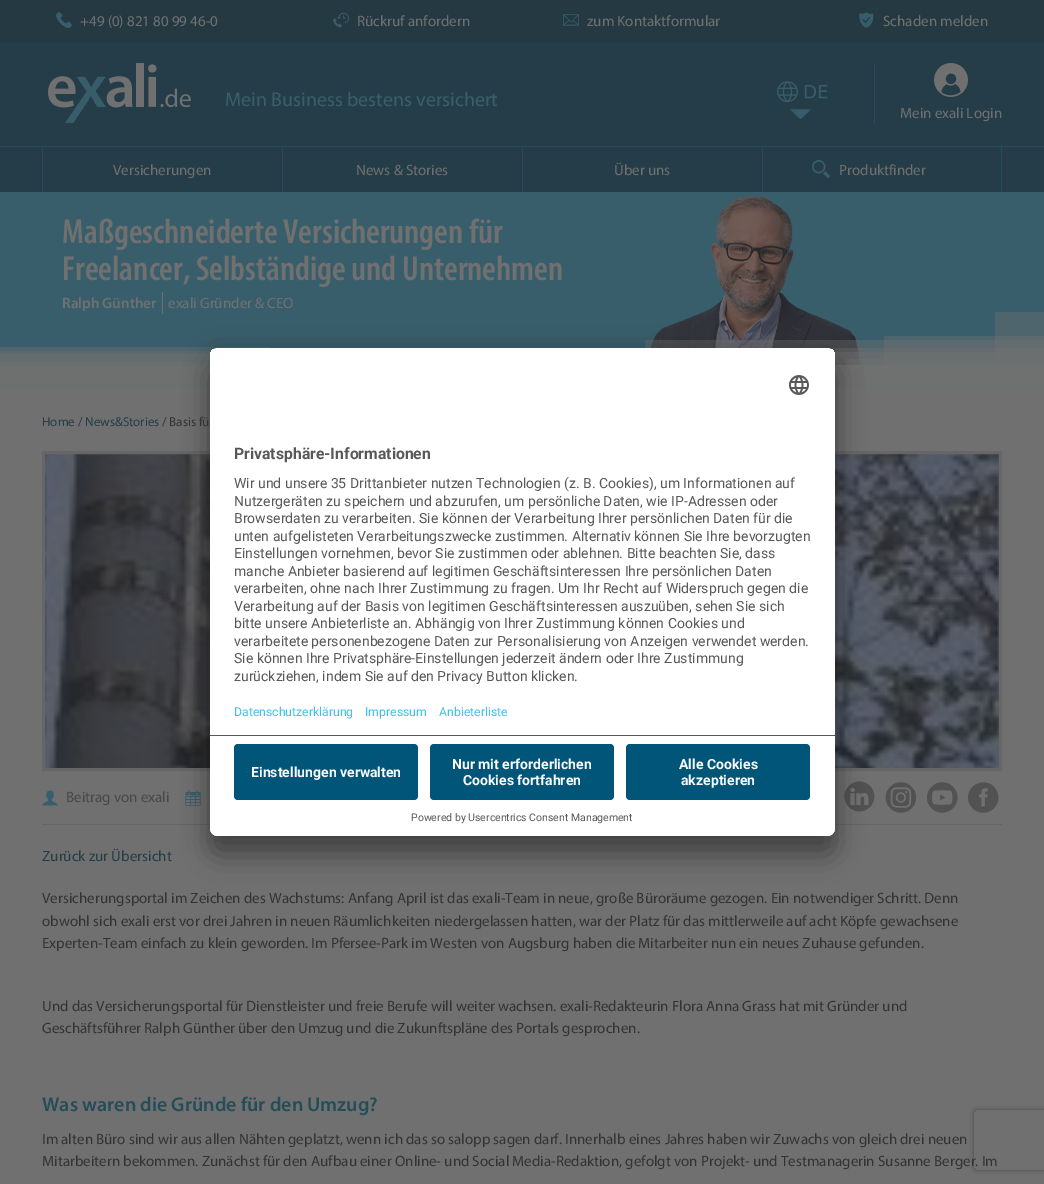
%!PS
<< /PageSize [1044 1184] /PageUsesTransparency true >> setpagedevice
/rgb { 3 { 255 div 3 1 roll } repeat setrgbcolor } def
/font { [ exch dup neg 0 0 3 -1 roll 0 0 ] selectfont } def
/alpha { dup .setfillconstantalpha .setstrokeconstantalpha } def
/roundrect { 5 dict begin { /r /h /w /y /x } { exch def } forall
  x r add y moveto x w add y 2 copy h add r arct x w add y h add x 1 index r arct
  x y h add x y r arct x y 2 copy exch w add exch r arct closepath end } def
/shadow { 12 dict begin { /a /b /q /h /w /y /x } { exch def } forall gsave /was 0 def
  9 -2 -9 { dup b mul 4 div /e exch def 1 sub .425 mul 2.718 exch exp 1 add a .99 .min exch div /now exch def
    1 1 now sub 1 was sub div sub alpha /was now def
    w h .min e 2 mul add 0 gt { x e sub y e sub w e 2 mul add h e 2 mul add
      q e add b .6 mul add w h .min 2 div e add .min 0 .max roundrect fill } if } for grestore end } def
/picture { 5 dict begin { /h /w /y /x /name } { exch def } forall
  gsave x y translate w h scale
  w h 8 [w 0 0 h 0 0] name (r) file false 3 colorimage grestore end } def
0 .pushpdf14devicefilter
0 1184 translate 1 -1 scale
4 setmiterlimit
112 112 112 rgb
0 0 1044 1184 rectfill
36 57 65 rgb
0 0 1044 43 rectfill
(img/1.rgb) 56 12 16 16 picture
(img/2.rgb) 333 12 16 16 picture
(img/3.rgb) 563 14 16 12 picture
(img/4.rgb) 859 12 15 16 picture
36 61 72 rgb
0 43 1044 103 rectfill
(img/5.rgb) 48 63 143 60 picture
(img/6.rgb) 777 81 51 38 picture
36 77 89 rgb
874 63 1 61 rectfill
(img/7.rgb) 934 63 34 34 picture
[
  [0 147 1044 45 36 61 72]
  [0 146 1044 1 36 77 89]
  [42 147 1 45 36 77 89]
  [282 147 1 45 36 77 89]
  [522 147 1 45 36 77 89]
  [1001 147 1 45 36 77 89]
  [762 147 1 45 36 77 89]
] { aload pop rgb rectfill } forall
(img/8.rgb) 812 160 18 18 picture
56 94 107 rgb
0 192 1044 196 rectfill
112 112 112 rgb
162 292 1 22 rectfill
(img/9.rgb) 651 196 215 192 picture
0.4 alpha
[
  [645 340 399 48 112 112 112]
  [833 352 211 36 112 112 112]
  [847 359 197 29 112 112 112]
  [827 348 217 40 112 112 112]
  [835 365 209 23 112 112 112]
  [0 354 211 12 112 112 112]
] { aload pop rgb rectfill } forall
1 alpha
[
  [0 366 210 22 92 106 110]
] { aload pop rgb rectfill } forall
0.7 alpha
[
  [0 365 1044 23 112 112 112]
] { aload pop rgb rectfill } forall
0.4 alpha
[
  [0 351 212 37 112 112 112]
  [0 347 270 41 112 112 112]
  [884 336 160 29 112 112 112]
  [995 312 49 47 112 112 112]
  [0 362 210 3 112 112 112]
] { aload pop rgb rectfill } forall
1 alpha
(img/10.rgb) 45 454 954 314 picture
102 102 102 rgb
3 setlinewidth
43.5 452.5 957 317 rectstroke
42 824 960 1 rectfill
(img/11.rgb) 42 790 16 16 picture
(img/12.rgb) 185 790 16 16 picture
(img/13.rgb) 844 781 31 31 picture
(img/14.rgb) 885 782 31 31 picture
(img/15.rgb) 927 782 31 31 picture
(img/16.rgb) 968 782 31 31 picture
gsave
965 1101 moveto 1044 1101 lineto 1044 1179 lineto 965 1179 lineto closepath 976 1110 moveto 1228 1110 lineto 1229 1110 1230 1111 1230 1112 curveto 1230 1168 lineto 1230 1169 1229 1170 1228 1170 curveto 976 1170 lineto 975 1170 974 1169 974 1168 curveto 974 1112 lineto 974 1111 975 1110 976 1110 curveto closepath eoclip newpath
74 74 74 rgb
974 1110 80 60 2 2.5 1 shadow
grestore
0 0 0 rgb
210 368 625 488 8 14 0.3 shadow
210 353 625 488 8 13 0.22 shadow
255 255 255 rgb
210 348 625 488 8 roundrect fill
gsave
210 348 625 488 8 roundrect clip newpath
218 348 moveto 827 348 lineto 831.5 348 835 351.5 835 356 curveto 835 735 lineto 210 735 lineto 210 356 lineto 210 351.5 213.5 348 218 348 curveto closepath clip newpath
210 349 625 386 rectfill
grestore
(img/17.rgb) 789 375 20 20 picture
210 735 moveto 835 735 lineto 835 828 lineto 835 832.5 831.5 836 827 836 curveto 218 836 lineto 213.5 836 210 832.5 210 828 curveto closepath fill
88 88 90 rgb
210 735 625 1 rectfill
0 85 120 rgb
234 744 184 56 4 roundrect fill
430 744 184 56 4 roundrect fill
626 744 184 56 4 roundrect fill
/Myriad-Regular 15 font
112 112 112 rgb
[
  [(+49 \(0\) 821 80 99 46-0) 80 26]
  [(Rückruf anfordern) 357 26]
  [(zum Kontaktformular) 587 26]
  [(Schaden melden) 883 26]
] { aload pop moveto show } forall
/Myriad-Regular 20 font
56 94 107 rgb
225 106 moveto (Mein Business bestens versichert) show
/Myriad-Regular 15 font
112 112 112 rgb
[
  [(Mein exali Login) 900 118]
  [(Versicherungen) 113 175]
  [(News & Stories) 356 175]
  [(Über uns) 614 175]
  [(Produktfinder) 839 175]
] { aload pop moveto show } forall
/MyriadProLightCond-SemiBold 35 font
62 243 moveto (Maßgeschneiderte Versicherungen für) show
62 280 moveto (Freelancer, Selbständige und Unternehmen) show
/Myriad-SemiBold 15 font
62 308 moveto (Ralph Günther) show
/Myriad-Regular 15 font
168 308 moveto (exali Gründer & CEO) show
/Myriad-Regular 13 font
36 61 72 rgb
42 426 moveto (Home) show
51 51 51 rgb
78 426 moveto (/) show
36 61 72 rgb
85 426 moveto (News&Stories) show
51 51 51 rgb
162 426 moveto (/ Basis fü) show
/Myriad-Regular 15 font
72 72 72 rgb
66 802 moveto (Beitrag von exali) show
36 61 72 rgb
42 861 moveto (Zurück zur Übersicht) show
51 51 51 rgb
[
  [(Versicherungsportal im Zeichen des Wachstums: Anfang April ist das exali-Team in neue, große Büroräume gezogen. Ein notwendiger Schritt. Denn) 42 903]
  [(obwohl sich exali erst vor drei Jahren in neuen Räumlichkeiten niedergelassen hatten, war der Platz für das mittlerweile auf acht Köpfe gewachsene) 42 926]
  [(Experten-Team einfach zu klein geworden. Im Pfersee-Park im Westen von Augsburg haben die Mitarbeiter nun ein neues Zuhause gefunden.) 42 948]
  [(Und das Versicherungsportal für Dienstleister und freie Berufe will weiter wachsen. exali-Redakteurin Flora Anna Grass hat mit Gründer und) 42 1011]
  [(Geschäftsführer Ralph Günther über den Umzug und die Zukunftspläne des Portals gesprochen.) 42 1033]
] { aload pop moveto show } forall
/Myriad-SemiBold 20 font
36 77 89 rgb
42 1111 moveto (Was waren die Gründe für den Umzug?) show
/Myriad-Regular 15 font
51 51 51 rgb
42 1144 moveto (Im alten Büro sind wir aus allen Nähten geplatzt, wenn ich das so salopp sagen darf. Innerhalb eines Jahres haben wir Zuwachs von gleich drei neuen) show
42 1166 moveto (Mitarbeitern bekommen. Zunächst für den Aufbau einer Online- und Social Media-Redaktion, gefolgt von Projekt- und Testmanagerin Susanne Berger. Im) show
/Roboto-Bold 15.75 font
88 88 90 rgb
234 459 moveto (Privatsphäre-Informationen) show
/Roboto-Regular 14 font
[
  [(Wir und unsere 35 Drittanbieter nutzen Technologien \(z. B. Cookies\), um Informationen auf) 234 488]
  [(Nutzergeräten zu speichern und abzurufen, um persönliche Daten, wie IP-Adressen oder) 234 506]
  [(Browserdaten zu verarbeiten. Sie können der Verarbeitung Ihrer persönlichen Daten für die) 234 523]
  [(unten aufgelisteten Verarbeitungszwecke zustimmen. Alternativ können Sie Ihre bevorzugten) 234 541]
  [(Einstellungen vornehmen, bevor Sie zustimmen oder ablehnen. Bitte beachten Sie, dass) 234 558]
  [(manche Anbieter basierend auf legitimen Geschäftsinteressen Ihre persönlichen Daten) 234 576]
  [(verarbeiten, ohne nach Ihrer Zustimmung zu fragen. Um Ihr Recht auf Widerspruch gegen die) 234 593]
  [(Verarbeitung auf der Basis von legitimen Geschäftsinteressen auszuüben, sehen Sie sich) 234 611]
  [(bitte unsere Anbieterliste an. Abhängig von Ihrer Zustimmung können Cookies und) 234 628]
  [(verarbeitete personenbezogene Daten zur Personalisierung von Anzeigen verwendet werden.) 234 646]
  [(Sie können Ihre Privatsphäre-Einstellungen jederzeit ändern oder Ihre Zustimmung) 234 663]
  [(zurückziehen, indem Sie auf den Privacy Button klicken.) 234 681]
] { aload pop moveto show } forall
/Roboto-Regular 12.25 font
65 192 235 rgb
[
  [(Datenschutzerklärung) 234 716]
  [(Impressum) 365 716]
  [(Anbieterliste) 439 716]
] { aload pop moveto show } forall
/Roboto-Bold 14 font
250 250 250 rgb
[
  [(Einstellungen verwalten) 251 777]
  [(Nur mit erforderlichen) 452 769]
  [(Cookies fortfahren) 463 785]
  [(Alle Cookies) 679 769]
  [(akzeptieren) 681 785]
] { aload pop moveto show } forall
/Roboto-Regular 10.5 font
88 88 90 rgb
411 821 moveto (Powered by Usercentrics Consent Management) show
.poppdf14devicefilter showpage
